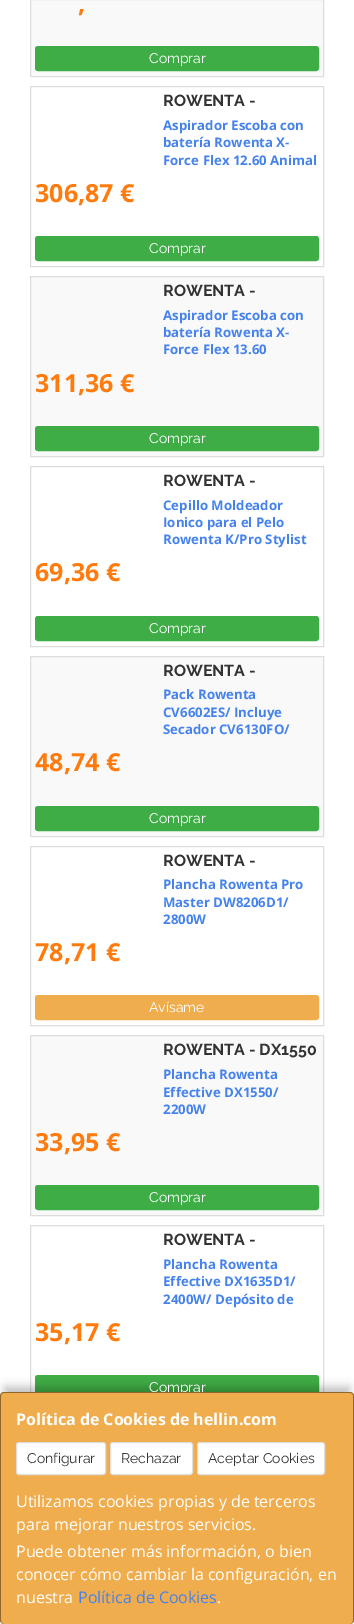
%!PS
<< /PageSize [354 1624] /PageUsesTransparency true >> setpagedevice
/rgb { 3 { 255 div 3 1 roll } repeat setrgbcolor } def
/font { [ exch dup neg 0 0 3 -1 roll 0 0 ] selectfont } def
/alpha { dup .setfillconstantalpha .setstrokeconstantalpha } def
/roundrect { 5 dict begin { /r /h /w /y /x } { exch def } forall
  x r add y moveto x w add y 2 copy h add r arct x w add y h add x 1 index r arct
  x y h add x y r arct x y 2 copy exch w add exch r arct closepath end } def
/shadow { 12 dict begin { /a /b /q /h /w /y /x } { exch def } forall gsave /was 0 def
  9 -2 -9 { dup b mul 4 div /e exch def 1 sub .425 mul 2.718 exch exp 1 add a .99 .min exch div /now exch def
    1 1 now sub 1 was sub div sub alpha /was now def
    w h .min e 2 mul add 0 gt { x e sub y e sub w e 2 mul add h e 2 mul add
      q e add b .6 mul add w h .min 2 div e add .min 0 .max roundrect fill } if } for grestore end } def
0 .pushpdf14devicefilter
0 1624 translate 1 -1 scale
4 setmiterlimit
255 255 255 rgb
0 0 354 1624 rectfill
249 249 249 rgb
30.5 -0.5 moveto 323.5 -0.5 lineto 323.5 76.5 lineto 30.5 76.5 lineto closepath gsave fill grestore
221 221 221 rgb
stroke
63 173 70 rgb
35.5 46.5 283 24 2.5 roundrect gsave fill grestore
stroke
221 221 221 rgb
30.5 86.5 293 180 rectstroke
63 173 70 rgb
35.5 236.5 283 24 2.5 roundrect gsave fill grestore
stroke
249 249 249 rgb
30.5 276.5 moveto 323.5 276.5 lineto 323.5 456.5 lineto 30.5 456.5 lineto closepath gsave fill grestore
221 221 221 rgb
stroke
63 173 70 rgb
35.5 426.5 283 24 2.5 roundrect gsave fill grestore
stroke
221 221 221 rgb
30.5 466.5 293 180 rectstroke
63 173 70 rgb
35.5 616.5 283 24 2.5 roundrect gsave fill grestore
stroke
249 249 249 rgb
30.5 656.5 moveto 323.5 656.5 lineto 323.5 836.5 lineto 30.5 836.5 lineto closepath gsave fill grestore
221 221 221 rgb
stroke
63 173 70 rgb
35.5 806.5 283 24 2.5 roundrect gsave fill grestore
stroke
221 221 221 rgb
30.5 846.5 293 179 rectstroke
240 173 78 rgb
35.5 995.5 283 24 2.5 roundrect gsave fill grestore
stroke
249 249 249 rgb
30.5 1035.5 moveto 323.5 1035.5 lineto 323.5 1215.5 lineto 30.5 1215.5 lineto closepath gsave fill grestore
221 221 221 rgb
stroke
63 173 70 rgb
35.5 1185.5 283 24 2.5 roundrect gsave fill grestore
stroke
221 221 221 rgb
30.5 1225.5 293 180 rectstroke
63 173 70 rgb
35.5 1375.5 283 24 2.5 roundrect gsave fill grestore
stroke
0 0 0 rgb
5 1387 344 222 0 5 0.25 shadow
/OpenSans-Bold 25 font
255 123 13 rgb
78 12 moveto (,) show
/Raleway-Regular 14 font
255 255 255 rgb
149 63 moveto (Comprar) show
/Raleway-Bold 16 font
51 51 51 rgb
163 106 moveto (ROWENTA -) show
/OpenSans-Bold 13.25 font
69 130 236 rgb
[
  [(Aspirador Escoba con) 163 130]
  [(batería Rowenta X-) 163 147]
  [(Force Flex 12.60 Animal) 163 165]
] { aload pop moveto show } forall
/OpenSans-Bold 25 font
255 123 13 rgb
35 202 moveto (306,87 €) show
/Raleway-Regular 14 font
255 255 255 rgb
149 253 moveto (Comprar) show
/Raleway-Bold 16 font
51 51 51 rgb
163 296 moveto (ROWENTA -) show
/OpenSans-Bold 13.25 font
69 130 236 rgb
[
  [(Aspirador Escoba con) 163 320]
  [(batería Rowenta X-) 163 337]
  [(Force Flex 13.60) 163 354]
] { aload pop moveto show } forall
/OpenSans-Bold 25 font
255 123 13 rgb
35 392 moveto (311,36 €) show
/Raleway-Regular 14 font
255 255 255 rgb
149 443 moveto (Comprar) show
/Raleway-Bold 16 font
51 51 51 rgb
163 486 moveto (ROWENTA -) show
/OpenSans-Bold 13.25 font
69 130 236 rgb
[
  [(Cepillo Moldeador) 163 510]
  [(Ionico para el Pelo) 163 527]
  [(Rowenta K/Pro Stylist) 163 544]
] { aload pop moveto show } forall
/OpenSans-Bold 25 font
255 123 13 rgb
35 581 moveto (69,36 €) show
/Raleway-Regular 14 font
255 255 255 rgb
149 633 moveto (Comprar) show
/Raleway-Bold 16 font
51 51 51 rgb
163 676 moveto (ROWENTA -) show
/OpenSans-Bold 13.25 font
69 130 236 rgb
[
  [(Pack Rowenta) 163 699]
  [(CV6602ES/ Incluye) 163 717]
  [(Secador CV6130FO/) 163 734]
] { aload pop moveto show } forall
/OpenSans-Bold 25 font
255 123 13 rgb
35 771 moveto (48,74 €) show
/Raleway-Regular 14 font
255 255 255 rgb
149 823 moveto (Comprar) show
/Raleway-Bold 16 font
51 51 51 rgb
163 866 moveto (ROWENTA -) show
/OpenSans-Bold 13.25 font
69 130 236 rgb
[
  [(Plancha Rowenta Pro) 163 889]
  [(Master DW8206D1/) 163 907]
  [(2800W) 163 924]
] { aload pop moveto show } forall
/OpenSans-Bold 25 font
255 123 13 rgb
35 961 moveto (78,71 €) show
/Raleway-Regular 14 font
255 255 255 rgb
149 1012 moveto (Avísame) show
/Raleway-Bold 16 font
51 51 51 rgb
163 1055 moveto (ROWENTA - DX1550) show
/OpenSans-Bold 13.25 font
69 130 236 rgb
[
  [(Plancha Rowenta) 163 1079]
  [(Effective DX1550/) 163 1097]
  [(2200W) 163 1114]
] { aload pop moveto show } forall
/OpenSans-Bold 25 font
255 123 13 rgb
35 1151 moveto (33,95 €) show
/Raleway-Regular 14 font
255 255 255 rgb
149 1202 moveto (Comprar) show
/Raleway-Bold 16 font
51 51 51 rgb
163 1245 moveto (ROWENTA -) show
/OpenSans-Bold 13.25 font
69 130 236 rgb
[
  [(Plancha Rowenta) 163 1269]
  [(Effective DX1635D1/) 163 1286]
  [(2400W/ Depósito de) 163 1304]
] { aload pop moveto show } forall
/OpenSans-Bold 25 font
255 123 13 rgb
35 1341 moveto (35,17 €) show
/Raleway-Regular 14 font
255 255 255 rgb
149 1392 moveto (Comprar) show
240 173 78 rgb
0 1392 354 232 4 roundrect fill
0.4 alpha
0 0 0 rgb
4 1392 moveto 350 1392 lineto 352 1392 354 1394 354 1396 curveto 354 1620 lineto 354 1622 352 1624 350 1624 curveto 4 1624 lineto 2 1624 0 1622 0 1620 curveto 0 1396 lineto 0 1394 2 1392 4 1392 curveto closepath 4 1393 moveto 350 1393 lineto 352 1393 353 1394 353 1396 curveto 353 1620 lineto 353 1622 352 1624 350 1624 curveto 4 1624 lineto 2 1624 1 1622 1 1620 curveto 1 1396 lineto 1 1394 2 1393 4 1393 curveto closepath eofill
/OpenSans-Bold 16 font
1 alpha
255 255 255 rgb
16 1425 moveto (Política de Cookies de hellin.com) show
16.5 1442.5 89 32 2.5 roundrect gsave fill grestore
221 221 221 rgb
stroke
/Raleway-Regular 14 font
51 51 51 rgb
27 1463 moveto (Configurar) show
255 255 255 rgb
110.5 1442.5 82 32 2.5 roundrect gsave fill grestore
221 221 221 rgb
stroke
51 51 51 rgb
121 1463 moveto (Rechazar) show
255 255 255 rgb
197.5 1442.5 127 32 2.5 roundrect gsave fill grestore
221 221 221 rgb
stroke
51 51 51 rgb
208 1463 moveto (Aceptar Cookies) show
/OpenSans-Regular 16 font
255 255 255 rgb
[
  [(Utilizamos cookies propias y de terceros) 16 1507]
  [(para mejorar nuestros servicios.) 16 1530]
  [(Puede obtener más información, o bien) 16 1557]
  [(conocer cómo cambiar la configuración, en) 16 1580]
  [(nuestra) 16 1603]
] { aload pop moveto show } forall
69 130 236 rgb
78 1603 moveto (Política de Cookies) show
255 255 255 rgb
217 1603 moveto (.) show
.poppdf14devicefilter showpage
